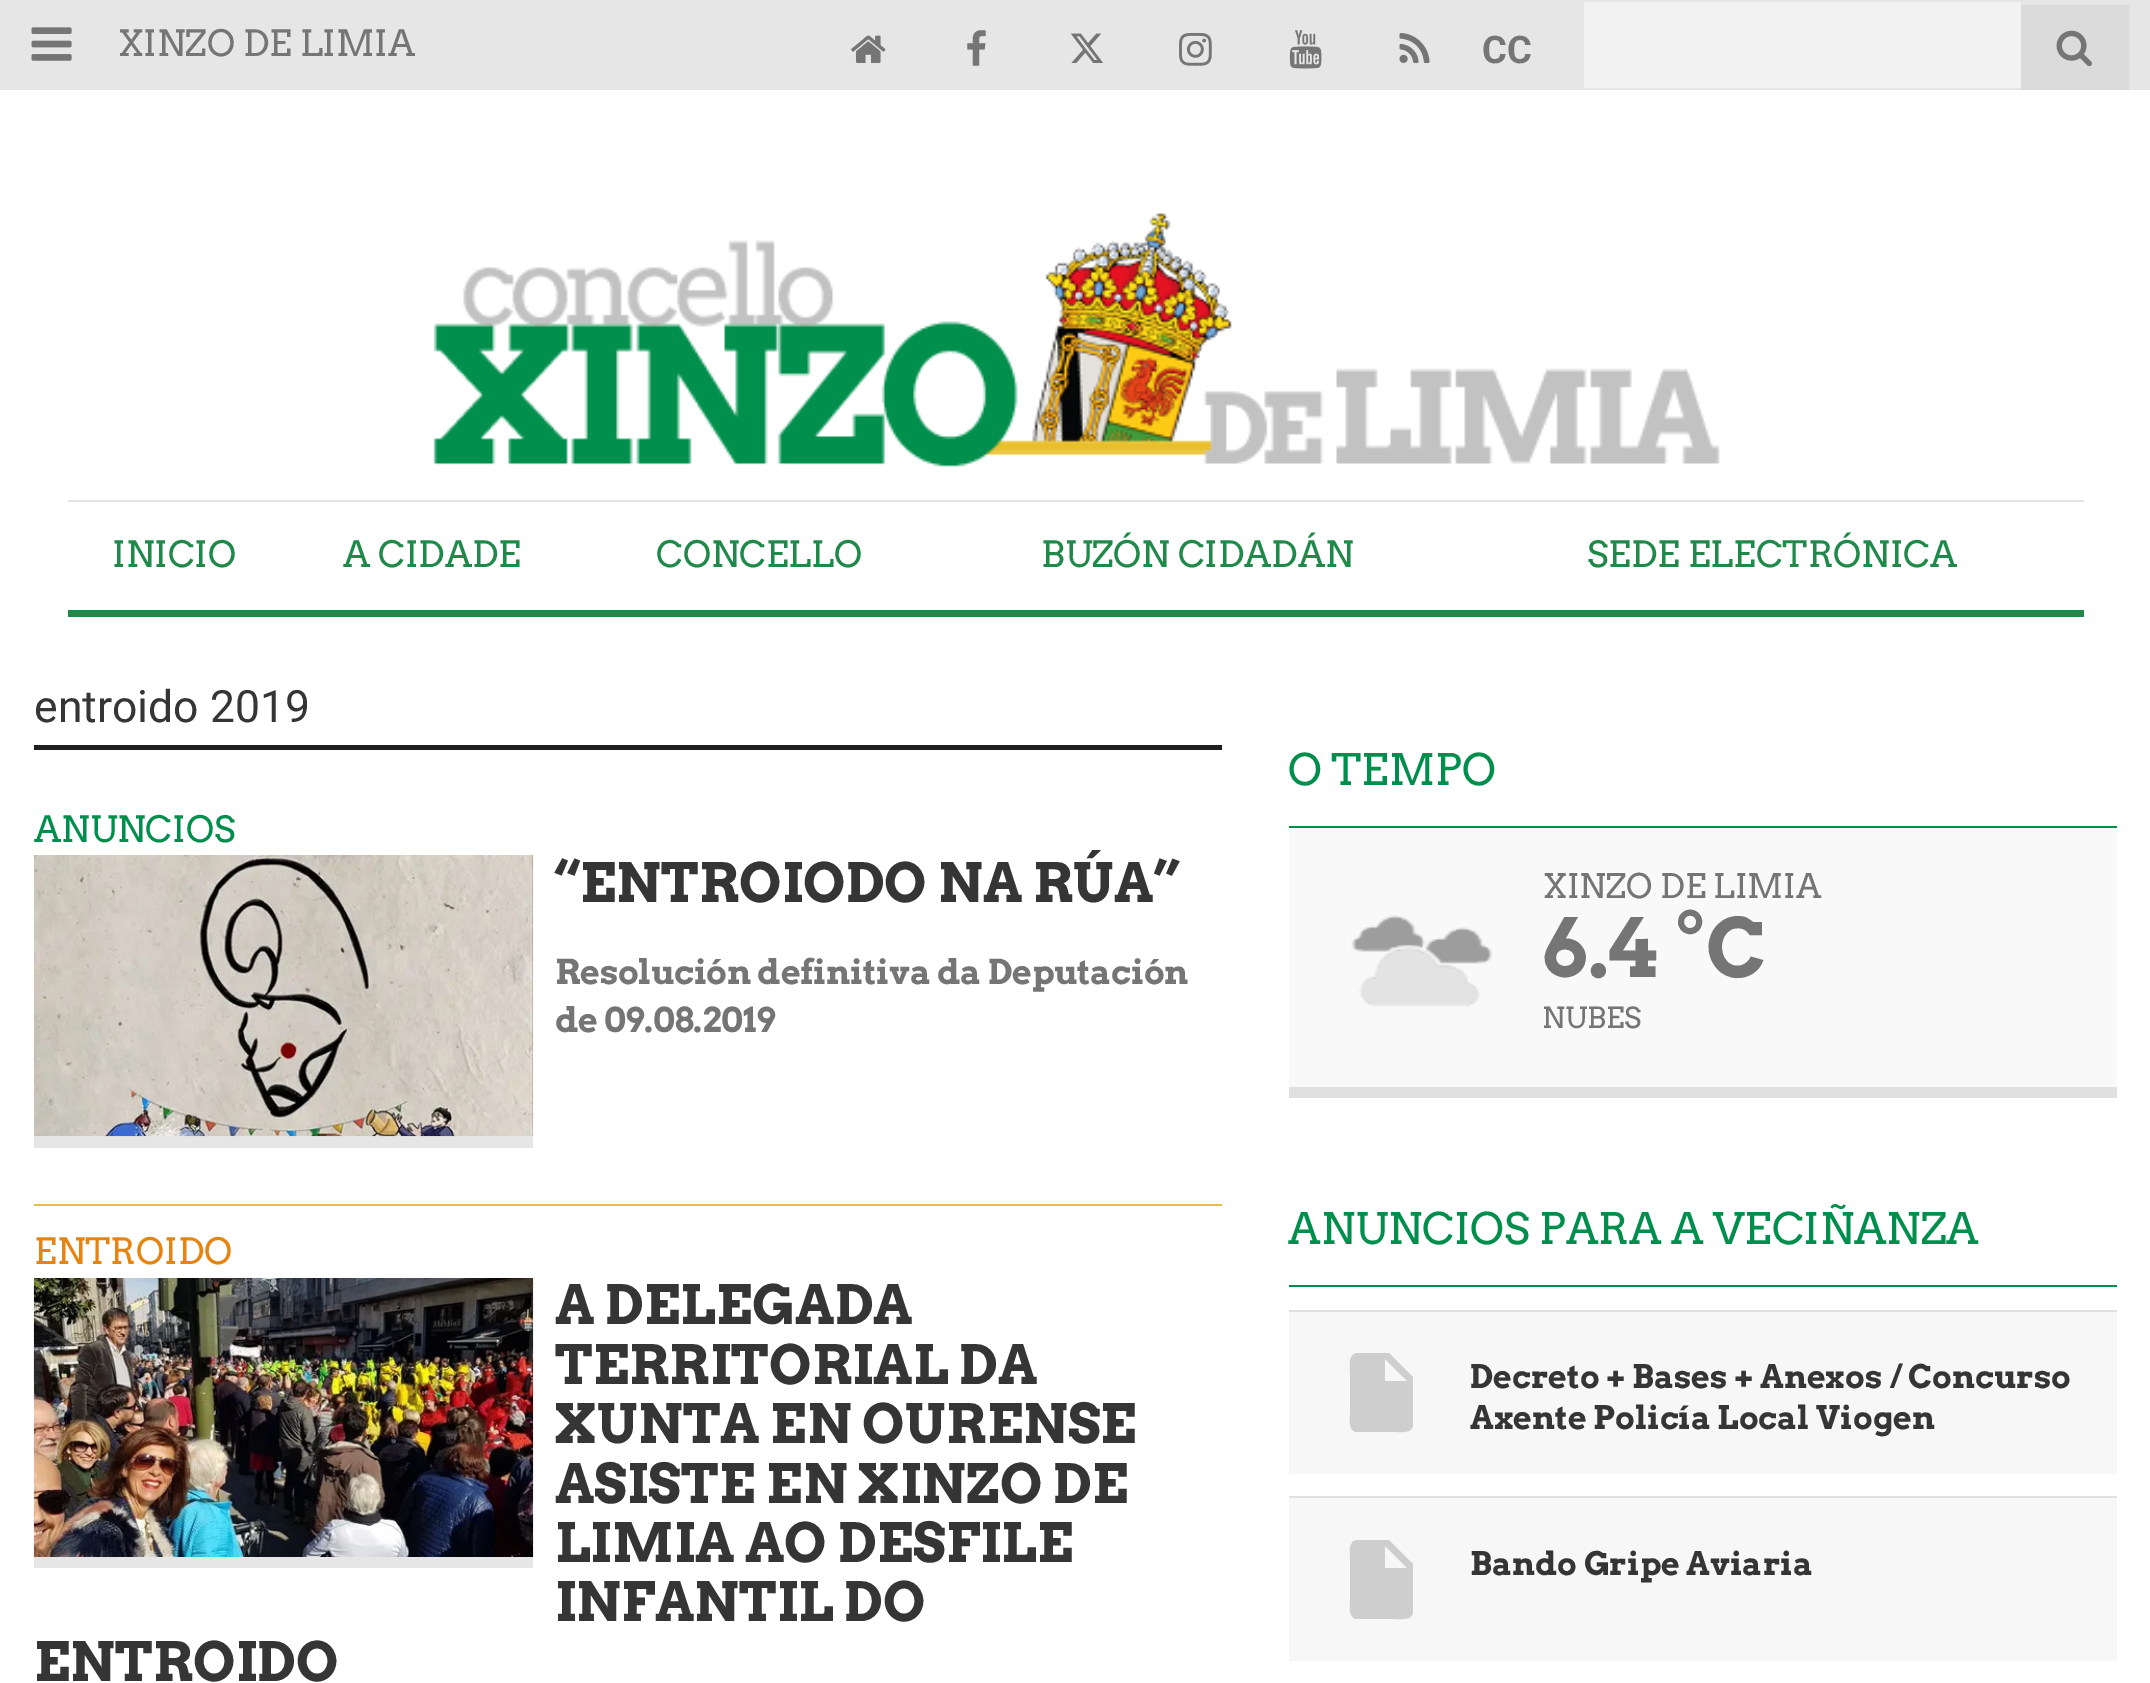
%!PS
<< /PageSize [2150 1683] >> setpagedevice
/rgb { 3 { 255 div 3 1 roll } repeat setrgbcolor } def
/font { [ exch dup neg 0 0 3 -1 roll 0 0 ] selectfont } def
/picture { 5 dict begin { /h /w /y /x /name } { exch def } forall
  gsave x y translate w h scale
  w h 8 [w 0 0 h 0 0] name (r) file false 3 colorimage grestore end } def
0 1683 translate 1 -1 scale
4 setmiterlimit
255 255 255 rgb
0 0 2150 1683 rectfill
230 230 230 rgb
0 0 2150 90 rectfill
(img/1.rgb) 31 27 41 34 picture
(img/2.rgb) 851 35 35 28 picture
(img/3.rgb) 967 30 19 36 picture
(img/4.rgb) 1070 33 33 30 picture
(img/5.rgb) 1179 32 33 34 picture
(img/6.rgb) 1289 30 33 39 picture
(img/7.rgb) 1399 33 31 30 picture
242 242 242 rgb
1584 2 437 86 rectfill
219 219 219 rgb
2021 5 108 85 rectfill
(img/8.rgb) 2056 30 36 37 picture
(img/9.rgb) 433 213 1287 254 picture
[
  [68 500 2016 2 228 228 228]
  [68 610 2016 7 31 137 74]
  [34 745 1188 5 31 31 31]
  [34 1204 1188 2 231 190 71]
  [34 1136 499 12 230 230 230]
] { aload pop rgb rectfill } forall
(img/10.rgb) 33 855 501 282 picture
34 1557 499 11 rectfill
(img/11.rgb) 33 1278 501 279 picture
[
  [1289 826 828 2 0 142 76]
  [1289 828 828 259 249 249 249]
  [1289 1087 828 11 224 224 224]
] { aload pop rgb rectfill } forall
(img/12.rgb) 1351 915 142 92 picture
[
  [1289 1285 828 2 0 142 76]
  [1289 1312 828 162 247 247 247]
  [1289 1310 828 2 223 224 223]
] { aload pop rgb rectfill } forall
206 206 206 rgb
1385 1381 moveto 1407 1381 lineto 1385 1359 lineto closepath 1358 1353 moveto 1389 1353 lineto 1413 1377 lineto 1413 1426 lineto 1411 1433 1403 1432 1397 1432 curveto 1356 1432 lineto 1348 1430 1350 1420 1350 1414 curveto 1350 1372 lineto 1350 1366 1348 1353 1358 1353 curveto closepath fill
247 247 247 rgb
1289 1498 828 163 rectfill
223 224 223 rgb
1289 1496 828 2 rectfill
206 206 206 rgb
1385 1568 moveto 1407 1568 lineto 1385 1546 lineto closepath 1358 1540 moveto 1389 1540 lineto 1413 1564 lineto 1413 1613 lineto 1411 1620 1403 1619 1397 1619 curveto 1356 1619 lineto 1348 1617 1350 1606 1350 1601 curveto 1350 1558 lineto 1350 1553 1348 1540 1358 1540 curveto closepath fill
/Arvo-Regular 36 font
117 117 117 rgb
117 56 moveto (XINZO DE LIMIA) show
/Roboto-Bold 38 font
1482 63 moveto (CC) show
/Arvo-Regular 36 font
31 137 74 rgb
[
  [(INICIO) 112 567]
  [(A CIDADE) 343 567]
  [(CONCELLO) 656 567]
  [(BUZÓN CIDADÁN) 1041 567]
  [(SEDE ELECTRÓNICA) 1587 567]
] { aload pop moveto show } forall
/Roboto-Regular 44.5 font
53 53 53 rgb
34 722 moveto (entroido 2019) show
/Arvo-Regular 36 font
0 142 76 rgb
34 842 moveto (ANUNCIOS) show
/Arvo-Bold 54 font
53 53 53 rgb
555 902 moveto (“ENTROIODO NA RÚA”) show
/Arvo-Bold 34.25 font
117 117 117 rgb
555 984 moveto -0.35 0 (Resolución definitiva da Deputación) ashow
555 1032 moveto -0.35 0 (de 09.08.2019) ashow
/Arvo-Regular 36 font
230 132 18 rgb
34 1264 moveto (ENTROIDO) show
/Arvo-Bold 54 font
53 53 53 rgb
[
  [(A DELEGADA) 555 1324]
  [(TERRITORIAL DA) 555 1384]
  [(XUNTA EN OURENSE) 555 1443]
  [(ASISTE EN XINZO DE) 555 1503]
  [(LIMIA AO DESFILE) 555 1562]
  [(INFANTIL DO) 555 1621]
  [(ENTROIDO) 34 1681]
] { aload pop moveto show } forall
/Arvo-Regular 43.25 font
0 142 76 rgb
1288 785 moveto (O TEMPO) show
/Arvo-Regular 33.75 font
117 117 117 rgb
1542 898 moveto (XINZO DE LIMIA) show
/Arvo-Bold 81 font
1542 977 moveto (6.4 °C) show
/Arvo-Regular 29 font
1542 1028 moveto (NUBES) show
/Arvo-Regular 43.25 font
0 142 76 rgb
1288 1244 moveto (ANUNCIOS PARA A VECIÑANZA) show
/Arvo-Bold 32.4 font
53 53 53 rgb
[
  [(Decreto + Bases + Anexos / Concurso) 1470 1388]
  [(Axente Policía Local Viogen) 1470 1429]
  [(Bando Gripe Aviaria) 1470 1575]
] { aload pop moveto show } forall
showpage
